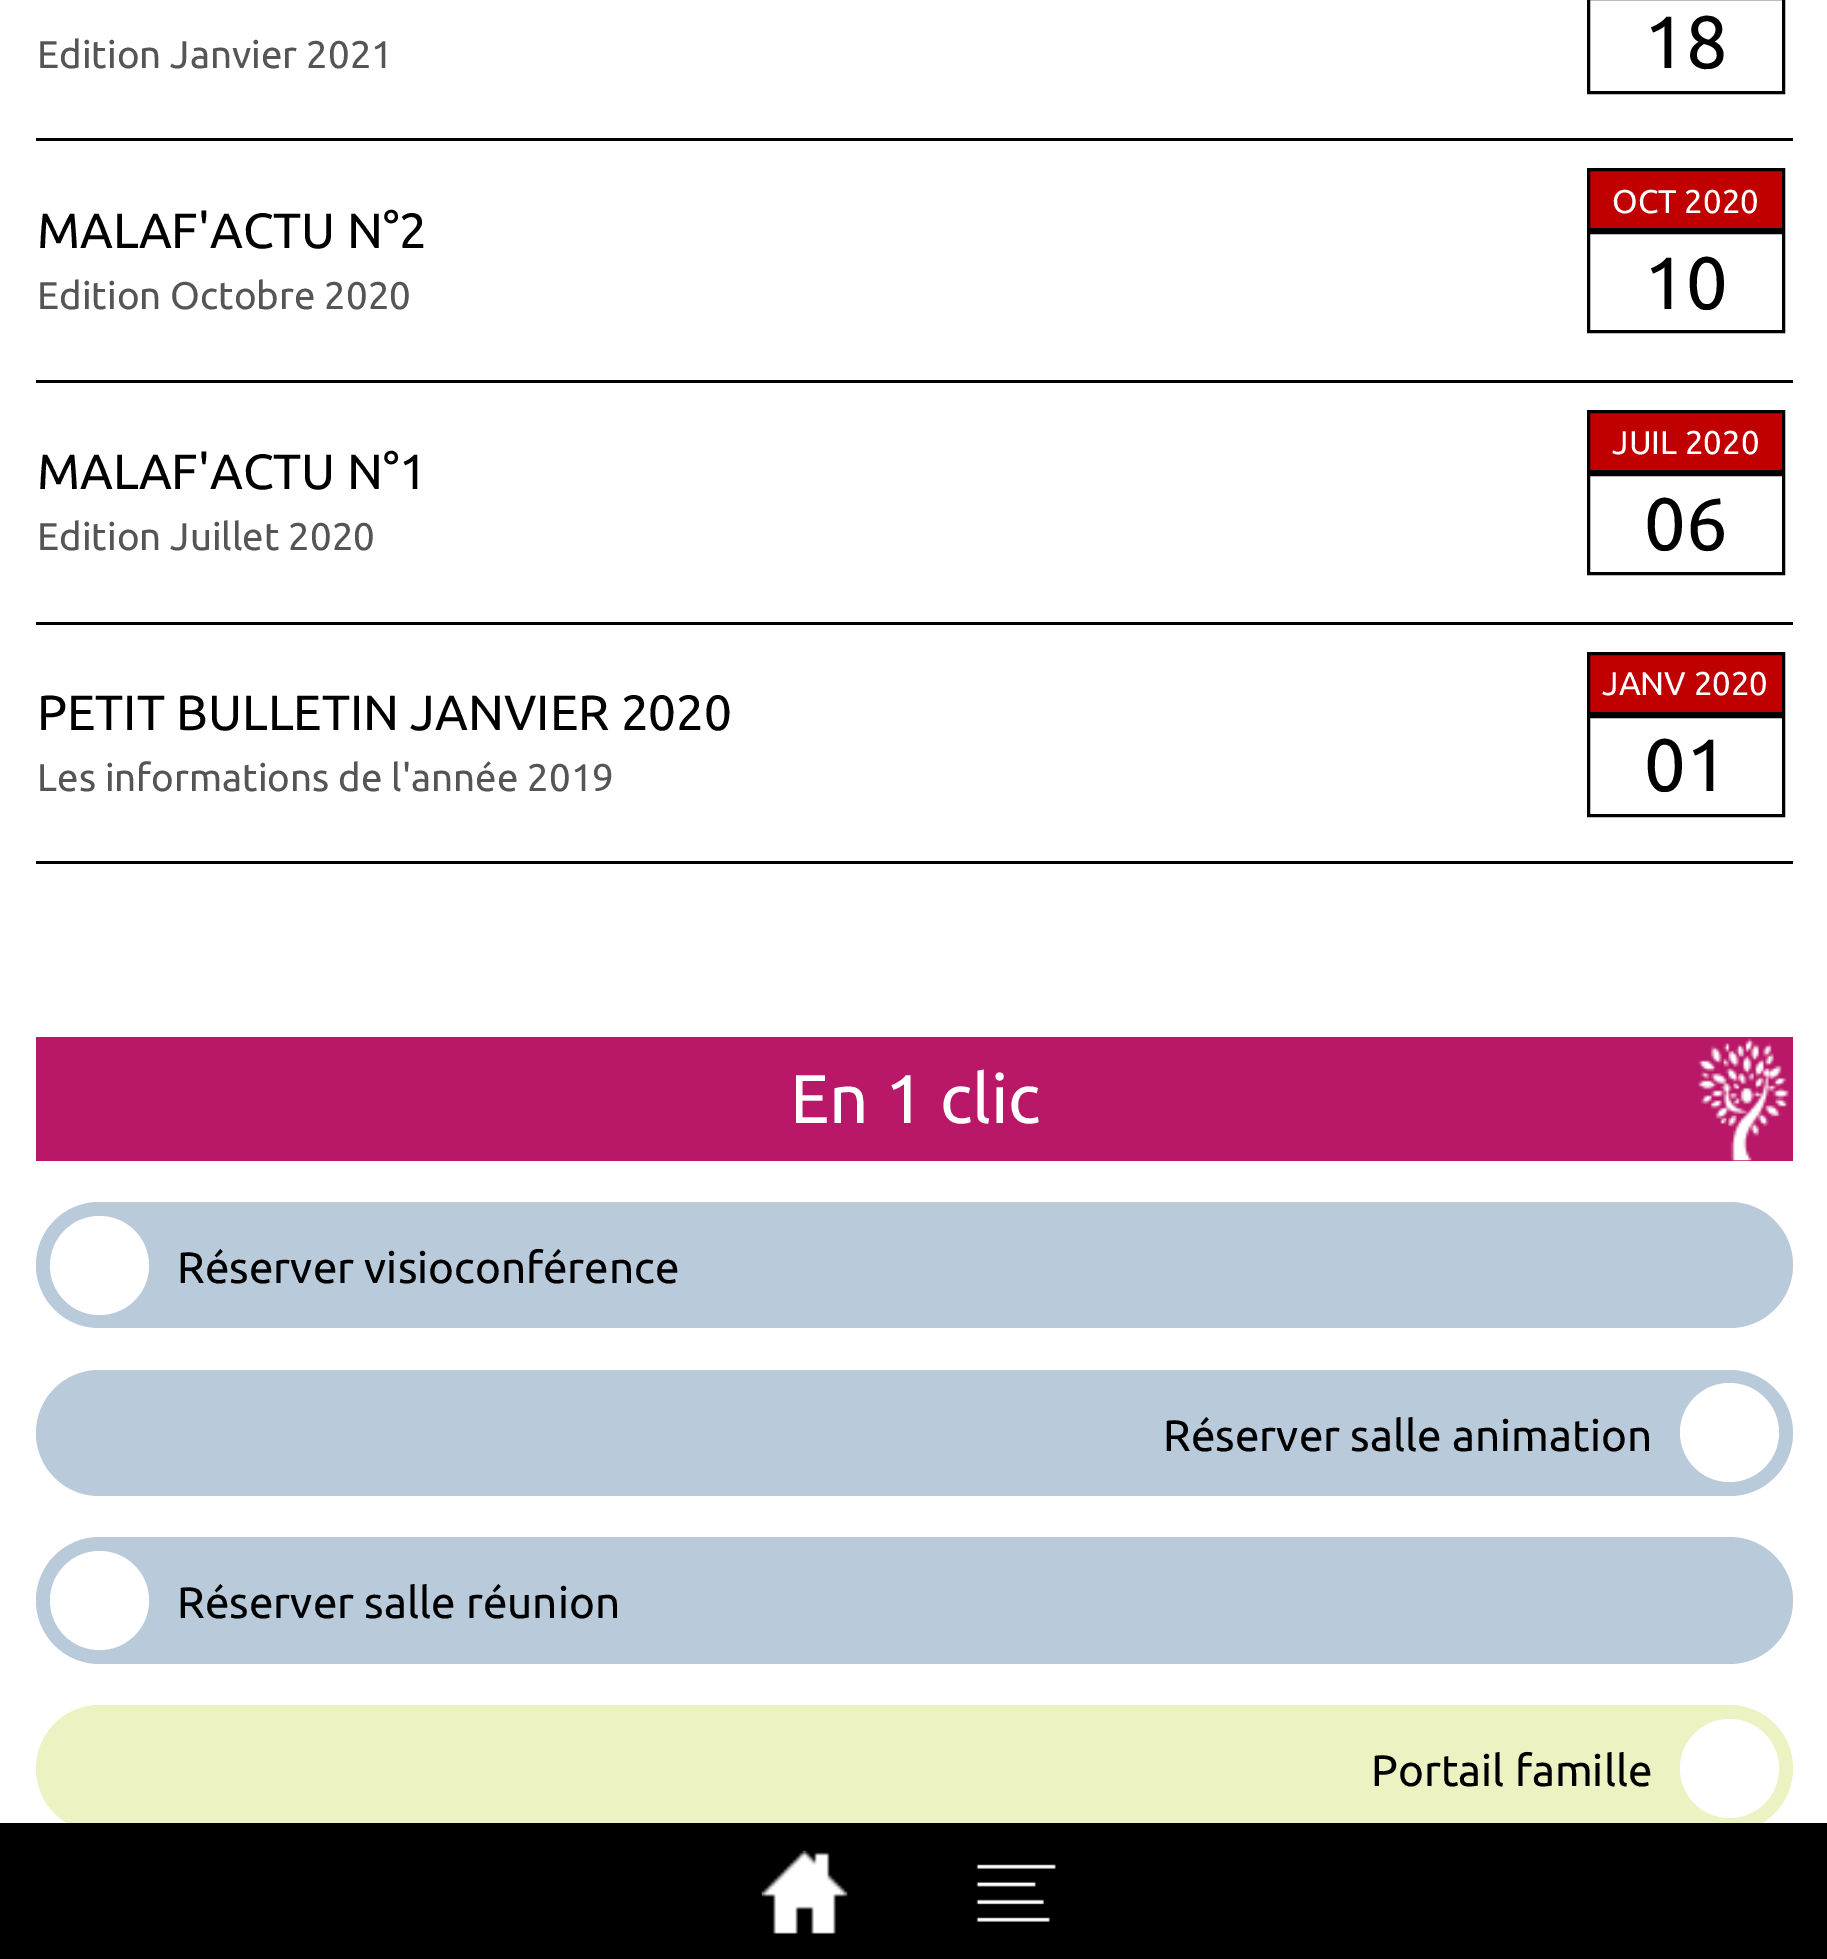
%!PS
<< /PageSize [1827 1959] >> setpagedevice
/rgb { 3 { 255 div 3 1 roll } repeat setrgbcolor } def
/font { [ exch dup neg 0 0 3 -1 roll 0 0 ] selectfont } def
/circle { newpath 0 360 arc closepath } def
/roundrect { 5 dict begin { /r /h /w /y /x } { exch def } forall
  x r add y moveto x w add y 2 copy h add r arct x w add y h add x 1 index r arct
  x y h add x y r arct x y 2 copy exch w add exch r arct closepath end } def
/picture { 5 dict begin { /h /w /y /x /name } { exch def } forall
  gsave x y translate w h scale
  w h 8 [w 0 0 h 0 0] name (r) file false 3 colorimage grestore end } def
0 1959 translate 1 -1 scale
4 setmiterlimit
255 255 255 rgb
0 0 1827 1959 rectfill
0 0 0 rgb
36 138 1757 3 rectfill
3 setlinewidth
1588.5 -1.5 195 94 rectstroke
36 380 1757 3 rectfill
192 0 0 rgb
1588.5 169.5 moveto 1783.5 169.5 lineto 1783.5 229.5 lineto 1588.5 229.5 lineto closepath gsave fill grestore
0 0 0 rgb
stroke
1588.5 232.5 195 99 rectstroke
36 622 1757 3 rectfill
192 0 0 rgb
1588.5 411.5 moveto 1783.5 411.5 lineto 1783.5 471.5 lineto 1588.5 471.5 lineto closepath gsave fill grestore
0 0 0 rgb
stroke
1588.5 474.5 195 99 rectstroke
36 861 1757 3 rectfill
192 0 0 rgb
1588.5 653.5 moveto 1783.5 653.5 lineto 1783.5 713.5 lineto 1588.5 713.5 lineto closepath gsave fill grestore
0 0 0 rgb
stroke
1588.5 716.5 195 99 rectstroke
184 24 103 rgb
36 1037 1757 124 rectfill
(img/1.rgb) 1698 1038 91 123 picture
185 202 218 rgb
36 1202 1757 126 63 roundrect fill
255 255 255 rgb
99.5 1265.5 49.5 circle fill
185 202 218 rgb
36 1370 1757 126 63 roundrect fill
255 255 255 rgb
1729.5 1432.5 49.5 circle fill
185 202 218 rgb
36 1537 1757 127 63.5 roundrect fill
255 255 255 rgb
99.5 1600.5 49.5 circle fill
236 242 193 rgb
36 1705 1757 127 63.5 roundrect fill
255 255 255 rgb
1729.5 1768.5 49.5 circle fill
0 0 0 rgb
0 1823 1827 136 rectfill
(img/2.rgb) 761 1850 87 84 picture
(img/3.rgb) 976 1864 80 58 picture
/Ubuntu-Regular 38.5 font
85 85 85 rgb
37 68 moveto (Edition Janvier 2021) show
/Ubuntu-Regular 74 font
0 0 0 rgb
1644 68 moveto (18) show
/Ubuntu-Regular 49.5 font
37 248 moveto (MALAF'ACTU N°2) show
/Ubuntu-Regular 38.5 font
85 85 85 rgb
37 309 moveto (Edition Octobre 2020) show
/Ubuntu-Regular 33 font
255 255 255 rgb
1612 213 moveto (OCT 2020) show
/Ubuntu-Regular 74 font
0 0 0 rgb
1644 309 moveto (10) show
/Ubuntu-Regular 49.5 font
37 489 moveto (MALAF'ACTU N°1) show
/Ubuntu-Regular 38.5 font
85 85 85 rgb
37 550 moveto (Edition Juillet 2020) show
/Ubuntu-Regular 33 font
255 255 255 rgb
1612 454 moveto (JUIL 2020) show
/Ubuntu-Regular 74 font
0 0 0 rgb
1644 550 moveto (06) show
/Ubuntu-Regular 49.5 font
37 730 moveto (PETIT BULLETIN JANVIER 2020) show
/Ubuntu-Regular 38.5 font
85 85 85 rgb
37 791 moveto (Les informations de l'année 2019) show
/Ubuntu-Regular 33 font
255 255 255 rgb
1602 695 moveto (JANV 2020) show
/Ubuntu-Regular 74 font
0 0 0 rgb
1644 791 moveto (01) show
/Ubuntu-Regular 69 font
255 255 255 rgb
790 1123 moveto (En 1 clic) show
/Ubuntu-Regular 44 font
0 0 0 rgb
[
  [(Réserver visioconférence) 177 1283]
  [(Réserver salle animation) 1163 1451]
  [(Réserver salle réunion) 177 1618]
  [(Portail famille) 1371 1786]
] { aload pop moveto show } forall
showpage
